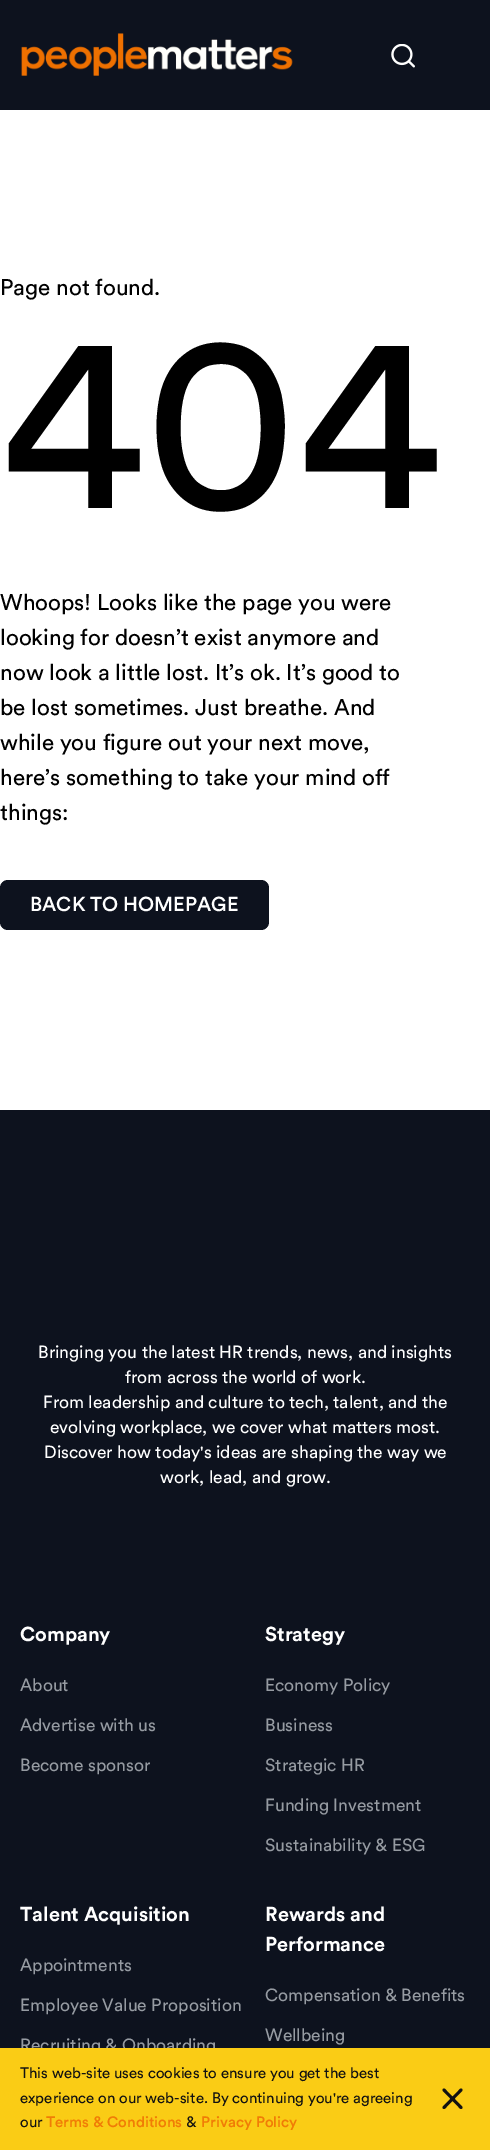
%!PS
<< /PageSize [490 2150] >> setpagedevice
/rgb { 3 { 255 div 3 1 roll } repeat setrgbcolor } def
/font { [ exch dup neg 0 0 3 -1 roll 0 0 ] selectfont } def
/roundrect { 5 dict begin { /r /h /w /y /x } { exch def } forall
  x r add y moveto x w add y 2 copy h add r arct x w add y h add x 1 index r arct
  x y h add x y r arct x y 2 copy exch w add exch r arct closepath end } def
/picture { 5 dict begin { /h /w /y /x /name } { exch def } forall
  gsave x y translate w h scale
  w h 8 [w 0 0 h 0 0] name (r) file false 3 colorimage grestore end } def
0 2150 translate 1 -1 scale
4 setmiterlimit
255 255 255 rgb
0 0 490 2150 rectfill
13 18 30 rgb
0 0 490 110 rectfill
(img/1.rgb) 21 33 272 43 picture
(img/2.rgb) 391 44 24 24 picture
0 880 269 50 8 roundrect fill
0 1110 490 938 rectfill
/Circular-Regular 22.5 font
0 0 0 rgb
0 295 moveto (Page not found.) show
/Circular-Regular 250 font
0 508 moveto (404) show
/Circular-Regular 22.5 font
[
  [(Whoops! Looks like the page you were) 0 610]
  [(looking for doesn’t exist anymore and) 0 645]
  [(now look a little lost. It’s ok. It’s good to) 0 680]
  [(be lost sometimes. Just breathe. And) 0 715]
  [(while you figure out your next move,) 0 750]
  [(here’s something to take your mind off) 0 785]
  [(things:) 0 820]
] { aload pop moveto show } forall
/Circular-Medium 20 font
255 255 255 rgb
30 911 moveto (BACK TO HOMEPAGE) show
/Circular-Regular 17.5 font
[
  [(Bringing you the latest HR trends, news, and insights) 38 1358]
  [(from across the world of work.) 125 1383]
  [(From leadership and culture to tech, talent, and the) 43 1408]
  [(evolving workplace, we cover what matters most.) 50 1433]
  [(Discover how today's ideas are shaping the way we) 44 1458]
  [(work, lead, and grow.) 160 1483]
] { aload pop moveto show } forall
/Circular-Bold 20 font
20 1641 moveto (Company) show
/Circular-Regular 17.5 font
150 155 162 rgb
[
  [(About) 20 1691]
  [(Advertise with us) 20 1731]
  [(Become sponsor) 20 1771]
] { aload pop moveto show } forall
/Circular-Bold 20 font
255 255 255 rgb
265 1641 moveto (Strategy) show
/Circular-Regular 17.5 font
150 155 162 rgb
[
  [(Economy Policy) 265 1691]
  [(Business) 265 1731]
  [(Strategic HR) 265 1771]
  [(Funding Investment) 265 1811]
  [(Sustainability & ESG) 265 1851]
] { aload pop moveto show } forall
/Circular-Bold 20 font
255 255 255 rgb
20 1921 moveto (Talent Acquisition) show
/Circular-Regular 17.5 font
150 155 162 rgb
[
  [(Appointments) 20 1971]
  [(Employee Value Proposition) 20 2011]
  [(Recruiting & Onboarding) 20 2051]
] { aload pop moveto show } forall
/Circular-Bold 20 font
255 255 255 rgb
265 1921 moveto (Rewards and) show
265 1951 moveto (Performance) show
/Circular-Regular 17.5 font
150 155 162 rgb
265 2001 moveto (Compensation & Benefits) show
265 2041 moveto (Wellbeing) show
250 204 21 rgb
0 2048 490 102 rectfill
/Circular-Regular 15 font
18 18 18 rgb
[
  [(This web-site uses cookies to ensure you get the best) 20 2078]
  [(experience on our web-site. By continuing you're agreeing) 20 2103]
  [(our) 20 2127]
] { aload pop moveto show } forall
/Circular-Medium 15 font
241 124 6 rgb
46 2127 moveto (Terms & Conditions) show
/Circular-Regular 15 font
18 18 18 rgb
186 2127 moveto (&) show
/Circular-Medium 15 font
241 124 6 rgb
201 2127 moveto (Privacy Policy) show
18 18 18 rgb
2.9 setlinewidth
1 setlinecap
1 setlinejoin
461 2090 moveto 444 2107.5 lineto 444 2090 moveto 461 2107.5 lineto stroke
showpage
